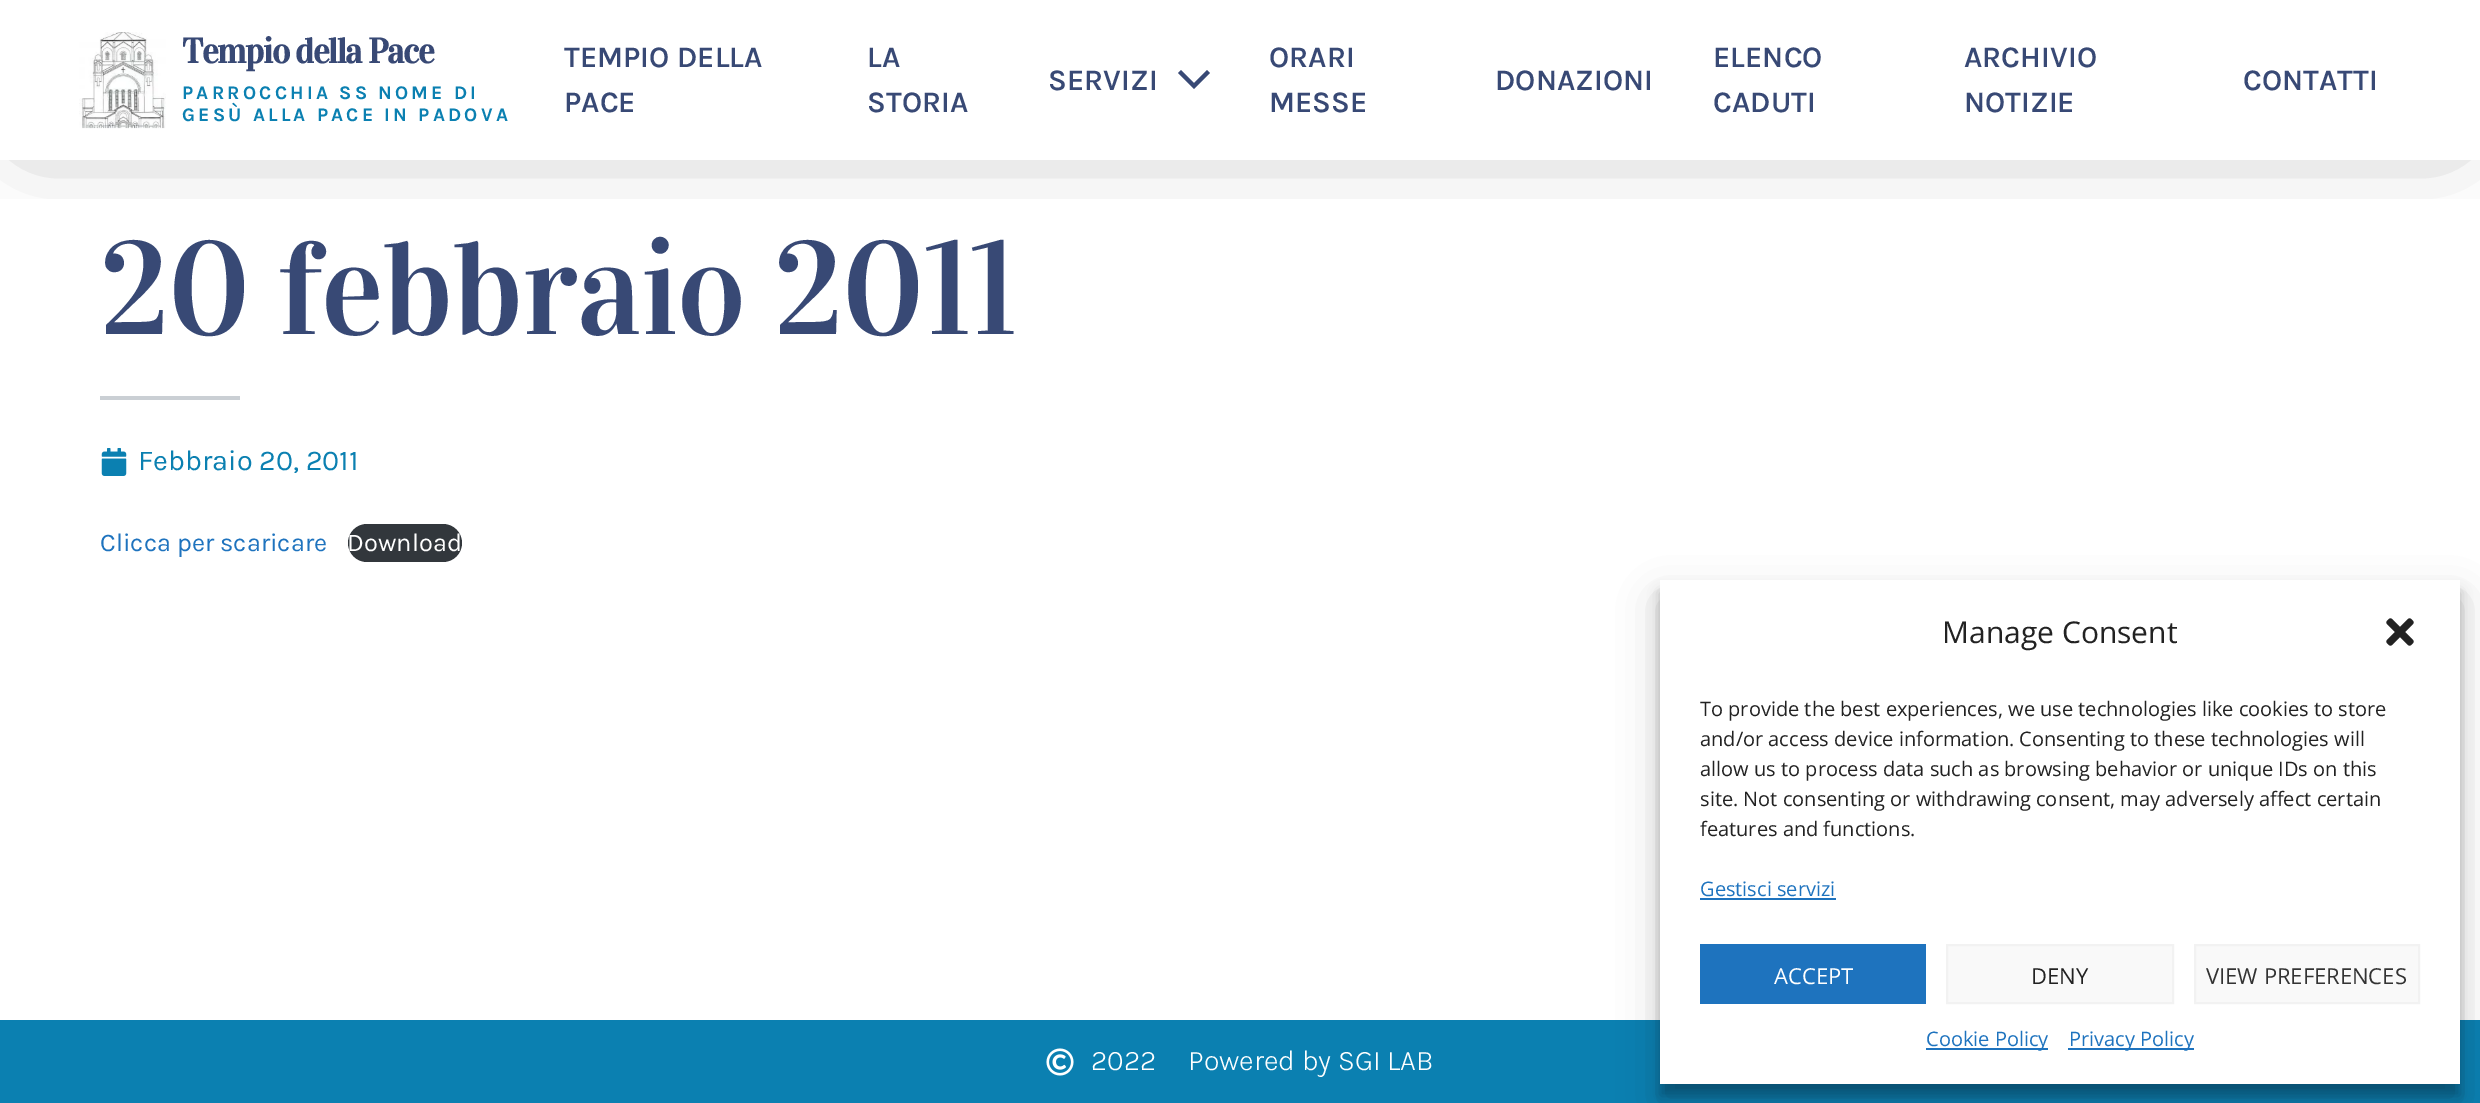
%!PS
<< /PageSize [2480 1103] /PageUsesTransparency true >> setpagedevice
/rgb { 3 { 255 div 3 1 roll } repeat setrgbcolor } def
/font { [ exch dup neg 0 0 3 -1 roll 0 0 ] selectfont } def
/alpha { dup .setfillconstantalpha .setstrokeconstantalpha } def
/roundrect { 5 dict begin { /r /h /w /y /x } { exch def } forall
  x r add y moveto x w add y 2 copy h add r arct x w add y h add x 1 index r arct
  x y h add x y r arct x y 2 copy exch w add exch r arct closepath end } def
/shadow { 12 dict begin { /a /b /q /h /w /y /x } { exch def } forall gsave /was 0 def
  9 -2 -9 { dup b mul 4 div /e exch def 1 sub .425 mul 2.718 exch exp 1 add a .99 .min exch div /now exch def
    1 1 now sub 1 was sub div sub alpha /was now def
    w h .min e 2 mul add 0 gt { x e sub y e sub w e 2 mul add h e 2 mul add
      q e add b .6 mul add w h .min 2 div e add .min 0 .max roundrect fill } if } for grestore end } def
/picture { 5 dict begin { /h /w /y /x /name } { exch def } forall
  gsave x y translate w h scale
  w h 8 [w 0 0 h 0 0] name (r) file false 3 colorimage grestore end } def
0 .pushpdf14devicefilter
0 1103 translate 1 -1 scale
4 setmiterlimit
255 255 255 rgb
0 0 2480 1103 rectfill
gsave
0 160 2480 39 rectclip
0 0 0 rgb
34 34 2412 92 0 42 0.5 shadow
grestore
(img/1.rgb) 79 32 87 97 picture
56 73 117 rgb
1181 70 moveto 1178 73 lineto 1194 89 lineto 1210 73 lineto 1207 70 lineto 1194 83 lineto closepath fill
202 207 212 rgb
100 396 140 4 rectfill
(img/2.rgb) 101 448 26 28 picture
50 55 60 rgb
348 524 114 38 19 roundrect fill
11 128 177 rgb
0 1020 2480 83 rectfill
0 0 0 rgb
1660 592 800 504 0 6 0.23 shadow
1660 600 800 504 0 20 0.19 shadow
255 255 255 rgb
1660 580 800 504 rectfill
(img/3.rgb) 2386 618 28 28 picture
30 115 190 rgb
1700 898 136 2 rectfill
1700 944 226 60 rectfill
249 249 249 rgb
1947 945 moveto 2173 945 lineto 2173 1003 lineto 1947 1003 lineto closepath gsave fill grestore
242 242 242 rgb
2 setlinewidth
stroke
249 249 249 rgb
2195 945 moveto 2419 945 lineto 2419 1003 lineto 2195 1003 lineto closepath gsave fill grestore
242 242 242 rgb
stroke
30 115 190 rgb
1926 1048 122 2 rectfill
2068 1048 126 2 rectfill
(img/4.rgb) 1046 1048 28 28 picture
/Vidaloka-Bold 35.25 font
56 73 117 rgb
182 63 moveto -1.4 0 (Tempio della Pace) ashow
/Karla-Bold 19.25 font
11 128 177 rgb
182 99 moveto 3.2 0 (PARROCCHIA SS NOME DI) ashow
182 121 moveto 3.2 0 (GESÙ ALLA PACE IN PADOVA) ashow
/Karla-SemiBold 30 font
56 73 117 rgb
[
  [(TEMPIO DELLA) 564 67]
  [(PACE) 564 112]
  [(LA) 867 67]
  [(STORIA) 867 112]
  [(SERVIZI) 1048 90]
  [(ORARI) 1269 67]
  [(MESSE) 1269 112]
  [(DONAZIONI) 1495 90]
  [(ELENCO) 1713 67]
  [(CADUTI) 1713 112]
  [(ARCHIVIO) 1964 67]
  [(NOTIZIE) 1964 112]
  [(CONTATTI) 2243 90]
] { aload pop moveto show } forall
/Vidaloka-Regular 132 font
100 334 moveto -1 0 (20 febbraio 2011) ashow
/Karla-Regular 28.75 font
11 128 177 rgb
138 470 moveto (Febbraio 20, 2011) show
/Karla-Regular 25.5 font
30 115 190 rgb
100 551 moveto (Clicca per scaricare) show
255 255 255 rgb
347 551 moveto (Download) show
/OpenSans-Regular 30 font
34 34 34 rgb
1942 643 moveto (Manage Consent) show
/OpenSans-Regular 20 font
[
  [(To provide the best experiences, we use technologies like cookies to store) 1700 716]
  [(and/or access device information. Consenting to these technologies will) 1700 746]
  [(allow us to process data such as browsing behavior or unique IDs on this) 1700 776]
  [(site. Not consenting or withdrawing consent, may adversely affect certain) 1700 806]
  [(features and functions.) 1700 836]
] { aload pop moveto show } forall
30 115 190 rgb
1700 896 moveto (Gestisci servizi) show
/OpenSans-Regular 22 font
255 255 255 rgb
1774 984 moveto (ACCEPT) show
34 34 34 rgb
2031 984 moveto (DENY) show
51 51 51 rgb
2206 984 moveto (VIEW PREFERENCES) show
/OpenSans-Regular 20 font
30 115 190 rgb
1926 1046 moveto (Cookie Policy) show
2069 1046 moveto (Privacy Policy) show
/Karla-Light 28.75 font
255 255 255 rgb
1091 1070 moveto (2022) show
1188 1070 moveto (Powered by SGI LAB) show
.poppdf14devicefilter showpage
